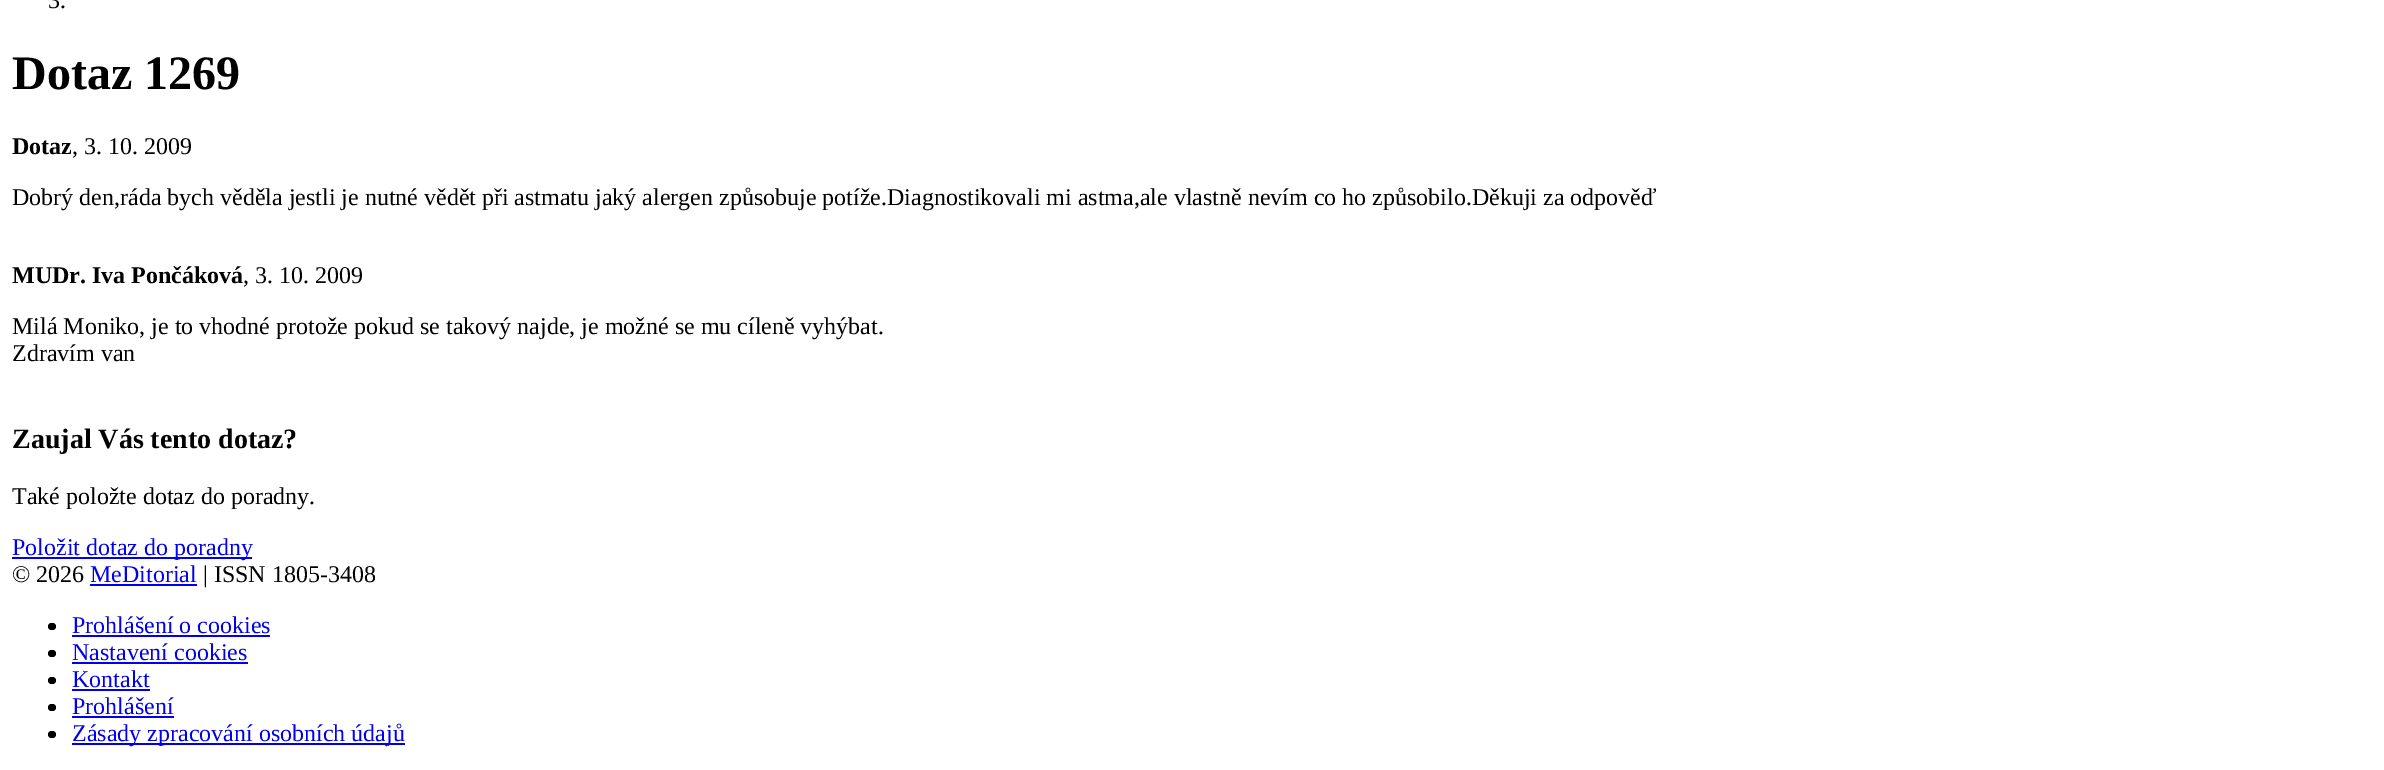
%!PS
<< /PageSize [2384 770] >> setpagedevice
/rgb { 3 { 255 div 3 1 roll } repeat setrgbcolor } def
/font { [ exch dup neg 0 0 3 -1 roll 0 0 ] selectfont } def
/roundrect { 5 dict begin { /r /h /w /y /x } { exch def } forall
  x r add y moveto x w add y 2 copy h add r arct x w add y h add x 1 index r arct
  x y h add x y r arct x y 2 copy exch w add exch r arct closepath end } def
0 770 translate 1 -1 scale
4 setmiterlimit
255 255 255 rgb
0 0 2384 770 rectfill
0 0 238 rgb
12 557 240 2 rectfill
90 584 107 2 rectfill
0 0 0 rgb
48 623 8 7 3.5 roundrect fill
0 0 238 rgb
72 635 198 2 rectfill
0 0 0 rgb
48 650 8 7 3.5 roundrect fill
0 0 238 rgb
72 662 176 2 rectfill
0 0 0 rgb
48 677 8 7 3.5 roundrect fill
0 0 238 rgb
72 689 78 2 rectfill
0 0 0 rgb
48 704 8 7 3.5 roundrect fill
0 0 238 rgb
72 716 102 2 rectfill
0 0 0 rgb
48 731 8 7 3.5 roundrect fill
0 0 238 rgb
72 743 333 2 rectfill
/LiberationSerif-Regular 24 font
0 0 0 rgb
48 8 moveto (3.) show
/LiberationSerif-Bold 48 font
12 89 moveto (Dotaz 1269) show
/LiberationSerif-Bold 24 font
12 154 moveto (Dotaz) show
/LiberationSerif-Regular 24 font
72 154 moveto (, 3. 10. 2009) show
12 205 moveto (Dobrý den,ráda bych věděla jestli je nutné vědět při astmatu jaký alergen způsobuje potíže.Diagnostikovali mi astma,ale vlastně nevím co ho způsobilo.Děkuji za odpověď) show
/LiberationSerif-Bold 24 font
12 283 moveto (MUDr. Iva Pončáková) show
/LiberationSerif-Regular 24 font
[
  [(, 3. 10. 2009) 243 283]
  [(Milá Moniko, je to vhodné protože pokud se takový najde, je možné se mu cíleně vyhýbat.) 12 334]
  [(Zdravím van) 12 361]
] { aload pop moveto show } forall
/LiberationSerif-Bold 28 font
12 448 moveto (Zaujal Vás tento dotaz?) show
/LiberationSerif-Regular 24 font
12 504 moveto (Také položte dotaz do poradny.) show
0 0 238 rgb
12 555 moveto (Položit dotaz do poradny) show
0 0 0 rgb
12 582 moveto (© 2026) show
0 0 238 rgb
90 582 moveto (MeDitorial) show
0 0 0 rgb
203 582 moveto (| ISSN 1805-3408) show
0 0 238 rgb
[
  [(Prohlášení o cookies) 72 633]
  [(Nastavení cookies) 72 660]
  [(Kontakt) 72 687]
  [(Prohlášení) 72 714]
  [(Zásady zpracování osobních údajů) 72 741]
] { aload pop moveto show } forall
showpage
